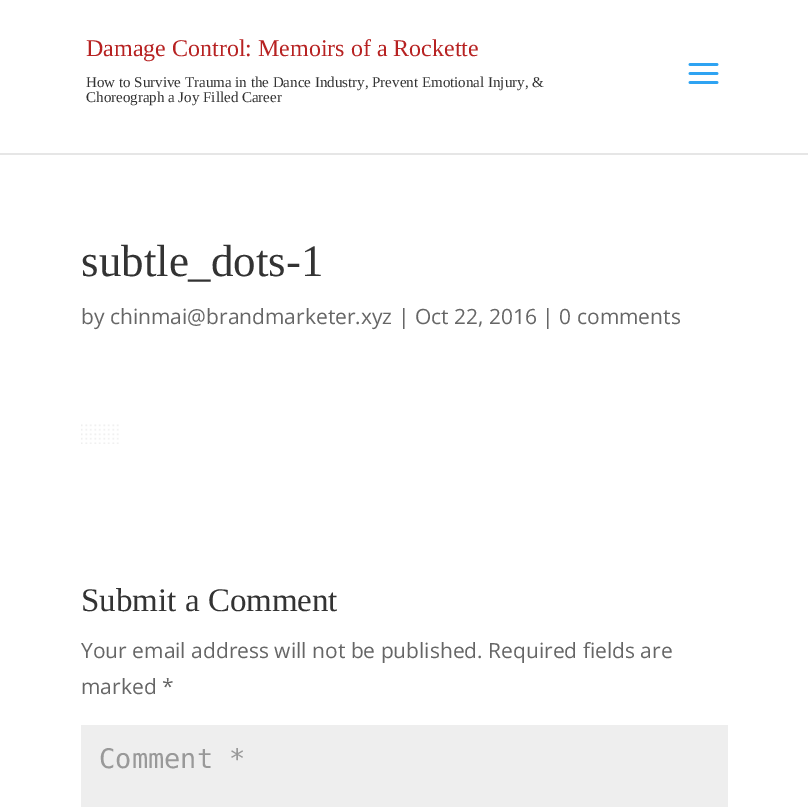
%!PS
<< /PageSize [808 807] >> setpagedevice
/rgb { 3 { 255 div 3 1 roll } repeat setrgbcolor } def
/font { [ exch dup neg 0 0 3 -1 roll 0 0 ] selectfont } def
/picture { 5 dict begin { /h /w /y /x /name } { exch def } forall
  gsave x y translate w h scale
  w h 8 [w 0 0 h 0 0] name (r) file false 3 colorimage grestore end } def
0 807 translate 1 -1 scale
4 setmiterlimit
255 255 255 rgb
0 0 808 807 rectfill
230 230 230 rgb
0 153 moveto 0 155 lineto 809 155 lineto 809 2 lineto 808 2 lineto 808 153 lineto closepath fill
(img/1.rgb) 688 63 31 21 picture
(img/2.rgb) 81 424 38 20 picture
238 238 238 rgb
81 725 647 82 rectfill
/LiberationSerif-Regular 24 font
183 34 34 rgb
86 56 moveto (Damage Control: Memoirs of a Rockette) show
/LiberationSerif-Regular 15 font
51 51 51 rgb
86 87 moveto (How to Survive Trauma in the Dance Industry, Prevent Emotional Injury, &) show
86 102 moveto (Choreograph a Joy Filled Career) show
/LiberationSerif-Regular 45 font
81 276 moveto (subtle_dots-1) show
/OpenSans-Regular 21 font
102 102 102 rgb
81 324 moveto (by chinmai@brandmarketer.xyz | Oct 22, 2016 | 0 comments) show
/LiberationSerif-Regular 33 font
51 51 51 rgb
81 611 moveto (Submit a Comment) show
/OpenSans-Regular 21 font
102 102 102 rgb
81 658 moveto (Your email address will not be published. Required fields are) show
81 694 moveto (marked *) show
/DejaVuSansMono-Regular 27 font
153 153 153 rgb
99 768 moveto (Comment *) show
showpage
